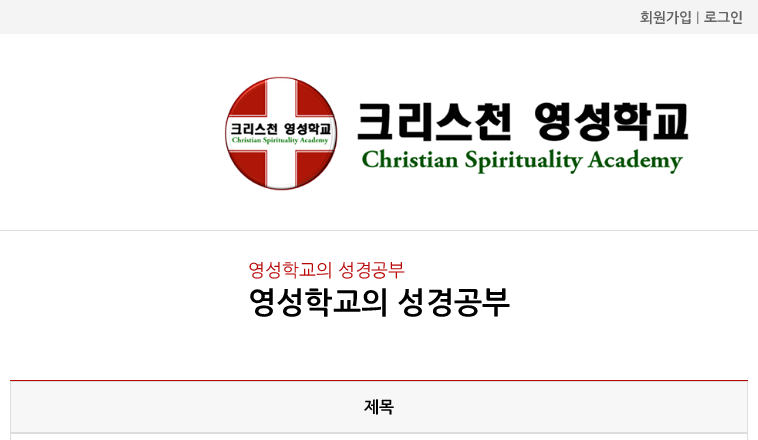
%!PS
<< /PageSize [758 440] >> setpagedevice
/rgb { 3 { 255 div 3 1 roll } repeat setrgbcolor } def
/font { [ exch dup neg 0 0 3 -1 roll 0 0 ] selectfont } def
/picture { 5 dict begin { /h /w /y /x /name } { exch def } forall
  gsave x y translate w h scale
  w h 8 [w 0 0 h 0 0] name (r) file false 3 colorimage grestore end } def
0 440 translate 1 -1 scale
4 setmiterlimit
255 255 255 rgb
0 0 758 440 rectfill
221 221 221 rgb
0 230 758 1 rectfill
244 244 244 rgb
0 0 758 34 rectfill
(img/1.rgb) 224 76 465 115 picture
[
  [10 380 738 1 184 6 6]
  [11 382 736 50 247 247 247]
  [10 381 1 59 221 221 221]
  [11 381 737 1 221 221 221]
  [747 381 1 52 221 221 221]
  [11 432 737 2 221 221 221]
  [747 433 1 7 221 221 221]
] { aload pop rgb rectfill } forall
/NanumGothic-Bold 14 font
100 100 100 rgb
640 22 moveto (회원가입) show
/NanumGothic-Regular 14 font
696 22 moveto (|) show
/NanumGothic-Bold 14 font
704 22 moveto (로그인) show
/NanumGothic-Regular 18 font
184 6 6 rgb
248 276 moveto (영성학교의 성경공부) show
/NanumGothic-Bold 30 font
0 0 0 rgb
248 312 moveto (영성학교의 성경공부) show
/NanumGothic-Bold 16 font
364 412 moveto (제목) show
showpage
